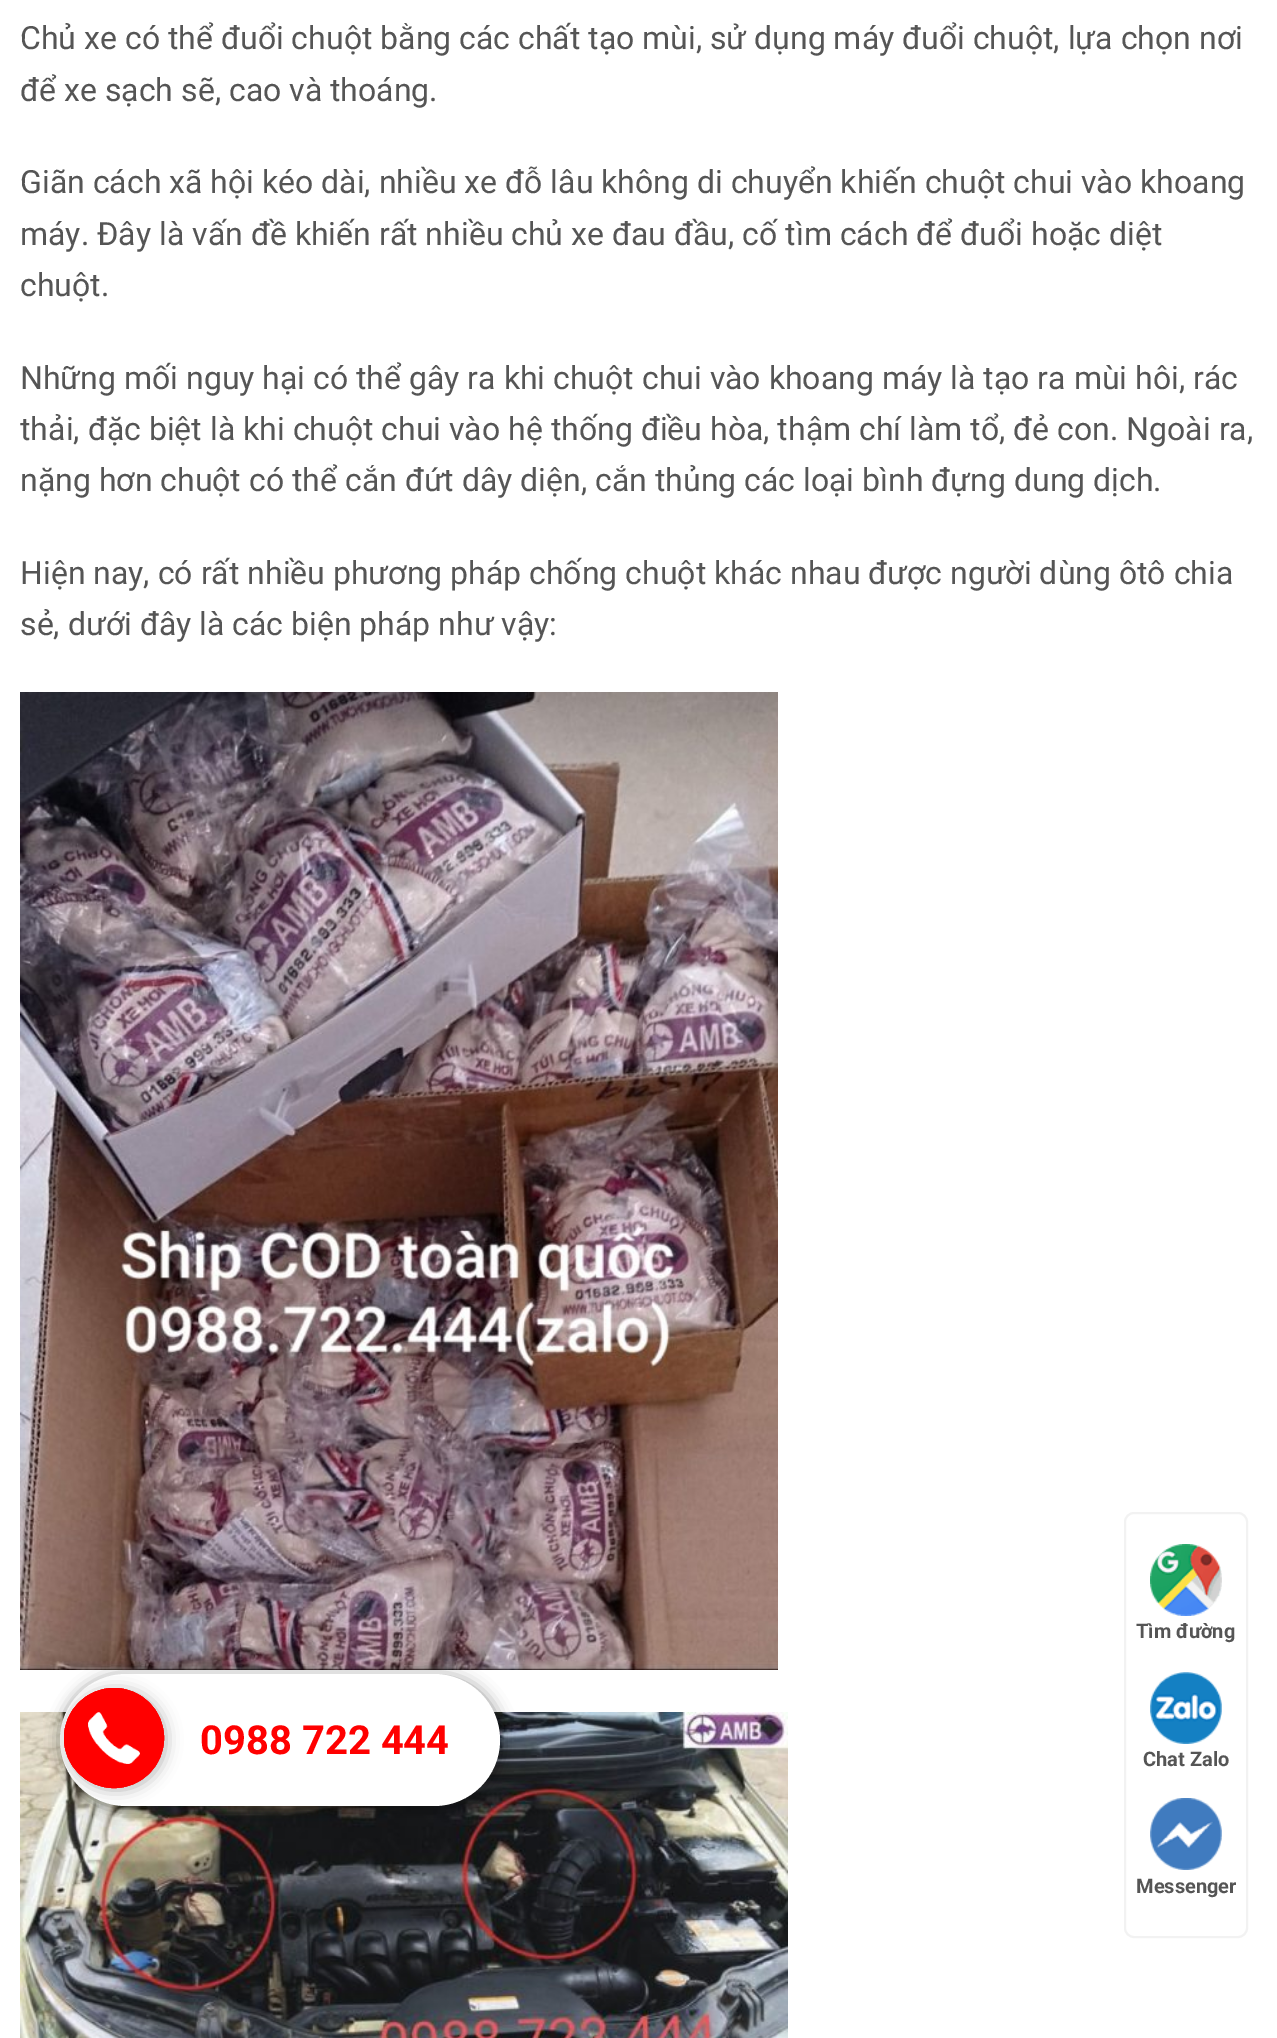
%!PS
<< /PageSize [1277 2038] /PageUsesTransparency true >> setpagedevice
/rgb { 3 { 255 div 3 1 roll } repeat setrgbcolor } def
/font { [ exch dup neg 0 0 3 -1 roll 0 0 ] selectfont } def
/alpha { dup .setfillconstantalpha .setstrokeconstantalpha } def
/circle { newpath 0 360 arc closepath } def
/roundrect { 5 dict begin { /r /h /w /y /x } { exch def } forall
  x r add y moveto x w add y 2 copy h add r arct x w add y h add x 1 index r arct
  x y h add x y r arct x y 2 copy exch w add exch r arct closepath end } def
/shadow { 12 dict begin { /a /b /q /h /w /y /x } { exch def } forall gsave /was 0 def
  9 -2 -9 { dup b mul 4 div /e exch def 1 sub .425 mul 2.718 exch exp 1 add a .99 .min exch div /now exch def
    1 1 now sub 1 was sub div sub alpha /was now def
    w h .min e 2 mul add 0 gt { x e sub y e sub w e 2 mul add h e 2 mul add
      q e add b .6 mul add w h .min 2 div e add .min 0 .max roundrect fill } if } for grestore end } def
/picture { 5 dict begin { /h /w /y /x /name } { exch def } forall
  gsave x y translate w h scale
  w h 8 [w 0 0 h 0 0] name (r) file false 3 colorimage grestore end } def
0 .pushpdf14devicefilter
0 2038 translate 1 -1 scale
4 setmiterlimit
255 255 255 rgb
0 0 1277 2038 rectfill
(img/1.rgb) 20 692 758 978 picture
(img/2.rgb) 20 1712 768 326 picture
0 0 0 rgb
62 1676 440 132 66 8 0.4 shadow
255 255 255 rgb
60 1674 440 132 66 roundrect fill
0 0 0 rgb
66 1690 100 100 50 8 0.3 shadow
255 0 0 rgb
114 1738 50 circle fill
(img/3.rgb) 88 1712 52 52 picture
2 setlinewidth
114 1738 49 circle stroke
114 1738 49 circle stroke
242 242 242 rgb
1125 1513 122 424 9 roundrect stroke
(img/4.rgb) 1150 1544 72 72 picture
(img/5.rgb) 1150 1672 72 72 picture
(img/6.rgb) 1150 1798 72 72 picture
/Roboto-Regular 32 font
85 85 85 rgb
[
  [(Chủ xe có thể đuổi chuột bằng các chất tạo mùi, sử dụng máy đuổi chuột, lựa chọn nơi) 20 49]
  [(để xe sạch sẽ, cao và thoáng.) 20 101]
  [(Giãn cách xã hội kéo dài, nhiều xe đỗ lâu không di chuyển khiến chuột chui vào khoang) 20 193]
  [(máy. Đây là vấn đề khiến rất nhiều chủ xe đau đầu, cố tìm cách để đuổi hoặc diệt) 20 245]
  [(chuột.) 20 296]
  [(Những mối nguy hại có thể gây ra khi chuột chui vào khoang máy là tạo ra mùi hôi, rác) 20 389]
  [(thải, đặc biệt là khi chuột chui vào hệ thống điều hòa, thậm chí làm tổ, đẻ con. Ngoài ra,) 20 440]
  [(nặng hơn chuột có thể cắn đứt dây diện, cắn thủng các loại bình đựng dung dịch.) 20 491]
  [(Hiện nay, có rất nhiều phương pháp chống chuột khác nhau được người dùng ôtô chia) 20 584]
  [(sẻ, dưới đây là các biện pháp như vậy:) 20 635]
] { aload pop moveto show } forall
/Roboto-Bold 40 font
255 0 0 rgb
200 1754 moveto (0988 722 444) show
/Roboto-Bold 20 font
85 85 85 rgb
[
  [(Tìm đường) 1136 1638]
  [(Chat Zalo) 1143 1766]
  [(Messenger) 1136 1893]
] { aload pop moveto show } forall
.poppdf14devicefilter showpage
